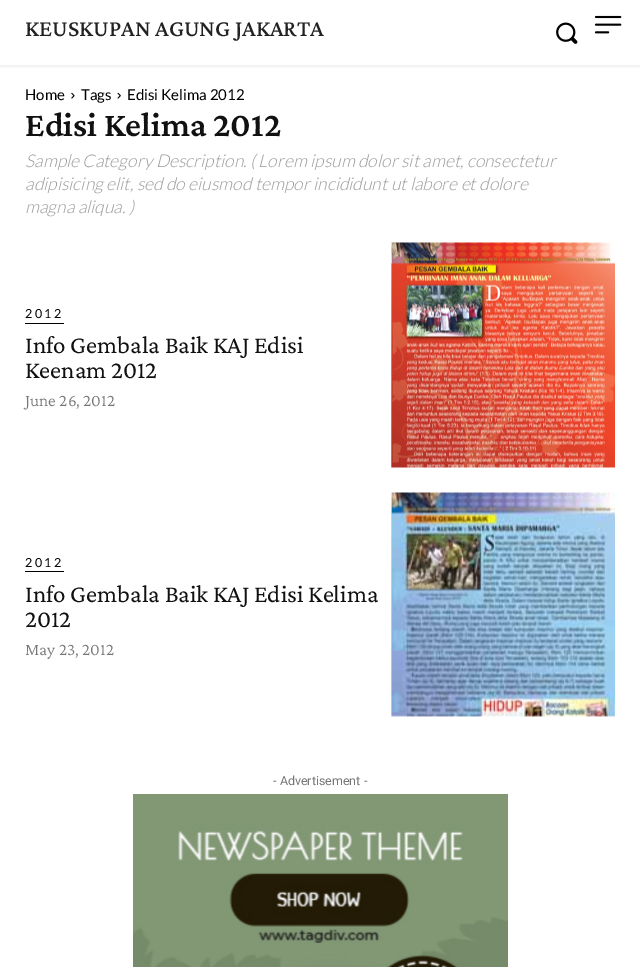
%!PS
<< /PageSize [640 967] /PageUsesTransparency true >> setpagedevice
/rgb { 3 { 255 div 3 1 roll } repeat setrgbcolor } def
/font { [ exch dup neg 0 0 3 -1 roll 0 0 ] selectfont } def
/alpha { dup .setfillconstantalpha .setstrokeconstantalpha } def
/roundrect { 5 dict begin { /r /h /w /y /x } { exch def } forall
  x r add y moveto x w add y 2 copy h add r arct x w add y h add x 1 index r arct
  x y h add x y r arct x y 2 copy exch w add exch r arct closepath end } def
/shadow { 12 dict begin { /a /b /q /h /w /y /x } { exch def } forall gsave /was 0 def
  9 -2 -9 { dup b mul 4 div /e exch def 1 sub .425 mul 2.718 exch exp 1 add a .99 .min exch div /now exch def
    1 1 now sub 1 was sub div sub alpha /was now def
    w h .min e 2 mul add 0 gt { x e sub y e sub w e 2 mul add h e 2 mul add
      q e add b .6 mul add w h .min 2 div e add .min 0 .max roundrect fill } if } for grestore end } def
/picture { 5 dict begin { /h /w /y /x /name } { exch def } forall
  gsave x y translate w h scale
  w h 8 [w 0 0 h 0 0] name (r) file false 3 colorimage grestore end } def
0 .pushpdf14devicefilter
0 967 translate 1 -1 scale
4 setmiterlimit
255 255 255 rgb
0 0 640 967 rectfill
(img/1.rgb) 556 22 22 22 picture
(img/2.rgb) 594 15 28 19 picture
gsave
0 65 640 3 rectclip
0 0 0 rgb
0 1 640 65 0 2.5 0.08 shadow
grestore
(img/3.rgb) 71 92 4 7 picture
(img/4.rgb) 117 92 4 7 picture
0 0 0 rgb
25 323 39 1 rectfill
(img/5.rgb) 391 242 224 226 picture
25 571 39 1 rectfill
(img/6.rgb) 391 492 224 225 picture
(img/7.rgb) 133 794 375 173 picture
/CrimsonPro-Medium 23.75 font
34 34 34 rgb
25 36 moveto (KEUSKUPAN AGUNG JAKARTA) show
/Lato-Regular 15 font
0 0 0 rgb
[
  [(Home) 25 100]
  [(Tags) 81 100]
  [(Edisi Kelima 2012) 127 100]
] { aload pop moveto show } forall
/CrimsonPro-SemiBold 35 font
17 17 17 rgb
25 136 moveto (Edisi Kelima 2012) show
/Lato-LightItalic 17.5 font
153 153 153 rgb
[
  [(Sample Category Description. \( Lorem ipsum dolor sit amet, consectetur) 25 167]
  [(adipisicing elit, sed do eiusmod tempor incididunt ut labore et dolore) 25 190]
  [(magna aliqua. \)) 25 213]
] { aload pop moveto show } forall
/Lato-Regular 12.5 font
0 0 0 rgb
25 318 moveto 2.5 0 (2012) ashow
/CrimsonPro-Regular 25 font
17 17 17 rgb
25 353 moveto (Info Gembala Baik KAJ Edisi) show
25 378 moveto (Keenam 2012) show
/CrimsonPro-Light 17.5 font
118 118 118 rgb
25 406 moveto (June 26, 2012) show
/Lato-Regular 12.5 font
0 0 0 rgb
25 567 moveto 2.5 0 (2012) ashow
/CrimsonPro-Regular 25 font
17 17 17 rgb
25 602 moveto (Info Gembala Baik KAJ Edisi Kelima) show
25 627 moveto (2012) show
/CrimsonPro-Light 17.5 font
118 118 118 rgb
25 655 moveto (May 23, 2012) show
/Roboto-Regular 12.5 font
273 785 moveto (- Advertisement -) show
.poppdf14devicefilter showpage
